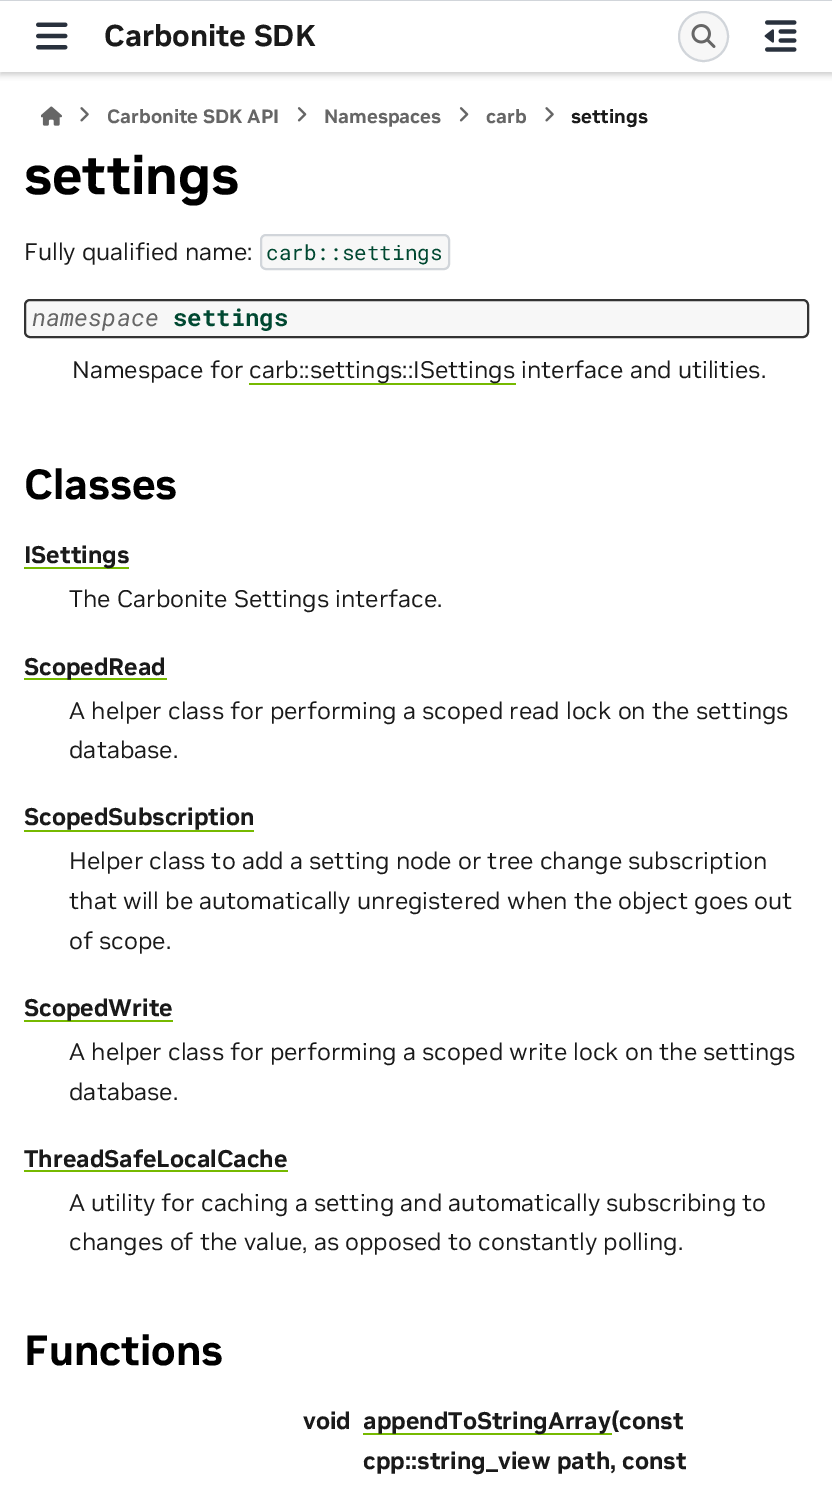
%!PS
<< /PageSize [832 1494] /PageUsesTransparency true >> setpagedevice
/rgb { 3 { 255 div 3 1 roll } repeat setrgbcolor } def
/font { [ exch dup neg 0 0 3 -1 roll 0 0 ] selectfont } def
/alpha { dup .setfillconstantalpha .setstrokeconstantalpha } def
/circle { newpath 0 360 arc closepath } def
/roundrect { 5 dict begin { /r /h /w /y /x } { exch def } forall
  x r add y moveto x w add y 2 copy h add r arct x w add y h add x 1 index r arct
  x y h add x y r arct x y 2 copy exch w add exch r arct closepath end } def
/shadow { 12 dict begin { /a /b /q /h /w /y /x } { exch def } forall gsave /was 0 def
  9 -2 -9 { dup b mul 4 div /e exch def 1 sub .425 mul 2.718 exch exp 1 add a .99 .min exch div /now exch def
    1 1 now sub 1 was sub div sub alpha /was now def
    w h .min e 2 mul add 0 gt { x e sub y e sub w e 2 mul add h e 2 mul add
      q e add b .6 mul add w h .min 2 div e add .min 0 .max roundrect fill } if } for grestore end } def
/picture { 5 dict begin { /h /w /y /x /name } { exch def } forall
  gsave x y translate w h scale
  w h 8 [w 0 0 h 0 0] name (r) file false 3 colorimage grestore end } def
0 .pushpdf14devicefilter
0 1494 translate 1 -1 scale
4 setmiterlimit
255 255 255 rgb
0 0 832 1494 rectfill
gsave
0 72 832 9 rectclip
204 204 204 rgb
0 3 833 72 0 3 1 shadow
grestore
209 213 218 rgb
0 0 832 1 rectfill
(img/1.rgb) 36 22 32 28 picture
247 247 247 rgb
703.5 36.5 24.5 circle gsave fill grestore
209 213 218 rgb
2 setlinewidth
stroke
(img/2.rgb) 691 24 25 24 picture
(img/3.rgb) 764 20 33 32 picture
(img/4.rgb) 41 106 21 20 picture
(img/5.rgb) 80 107 9 15 picture
(img/6.rgb) 297 107 10 15 picture
(img/6.rgb) 459 107 10 15 picture
(img/5.rgb) 545 107 9 15 picture
247 247 247 rgb
261 235 188 34 5 roundrect gsave fill grestore
209 213 218 rgb
stroke
247 247 247 rgb
25 300 783 37 5 roundrect gsave fill grestore
51 51 51 rgb
stroke
[
  [249 383 267 2 118 185 0]
  [24 567 105 2 118 185 0]
  [24 678 143 2 118 185 0]
  [24 830 230 2 118 185 0]
  [24 1020 149 2 118 185 0]
  [24 1170 264 2 118 185 0]
  [363 1433 249 2 118 185 0]
] { aload pop rgb rectfill } forall
/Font-Bold 30 font
26 26 26 rgb
104 46 moveto (Carbonite SDK) show
/Font-Bold 19.25 font
102 102 102 rgb
[
  [(Carbonite SDK API) 107 123]
  [(Namespaces) 324 123]
  [(carb) 486 123]
] { aload pop moveto show } forall
26 26 26 rgb
571 123 moveto (settings) show
/Font-Bold 54 font
0 0 0 rgb
24 194 moveto (settings) show
/Font-Regular 24 font
26 26 26 rgb
24 260 moveto (Fully qualified name:) show
/RobotoMono-Regular 21 font
0 72 49 rgb
266 260 moveto (carb::settings) show
/RobotoMono-Italic 24 font
102 102 102 rgb
32 326 moveto (namespace) show
/RobotoMono-Bold 24 font
0 72 49 rgb
173 326 moveto (settings) show
/Font-Regular 24 font
26 26 26 rgb
72 378 moveto (Namespace for) show
249 378 moveto (carb::settings::ISettings interface and utilities.) show
/Font-Bold 42 font
0 0 0 rgb
24 499 moveto (Classes) show
/Font-Bold 24 font
26 26 26 rgb
24 563 moveto (ISettings) show
/Font-Regular 24 font
69 607 moveto (The Carbonite Settings interface.) show
/Font-Bold 24 font
24 675 moveto (ScopedRead) show
/Font-Regular 24 font
69 719 moveto (A helper class for performing a scoped read lock on the settings) show
69 758 moveto (database.) show
/Font-Bold 24 font
24 825 moveto (ScopedSubscription) show
/Font-Regular 24 font
[
  [(Helper class to add a setting node or tree change subscription) 69 869]
  [(that will be automatically unregistered when the object goes out) 69 909]
  [(of scope.) 69 949]
] { aload pop moveto show } forall
/Font-Bold 24 font
24 1016 moveto (ScopedWrite) show
/Font-Regular 24 font
69 1060 moveto (A helper class for performing a scoped write lock on the settings) show
69 1100 moveto (database.) show
/Font-Bold 24 font
24 1167 moveto (ThreadSafeLocalCache) show
/Font-Regular 24 font
69 1211 moveto (A utility for caching a setting and automatically subscribing to) show
69 1250 moveto (changes of the value, as opposed to constantly polling.) show
/Font-Bold 42 font
0 0 0 rgb
24 1365 moveto (Functions) show
/Font-Bold 24 font
26 26 26 rgb
[
  [(void) 303 1429]
  [(appendToStringArray\(const) 363 1429]
  [(cpp::string_view path, const) 363 1469]
] { aload pop moveto show } forall
.poppdf14devicefilter showpage
